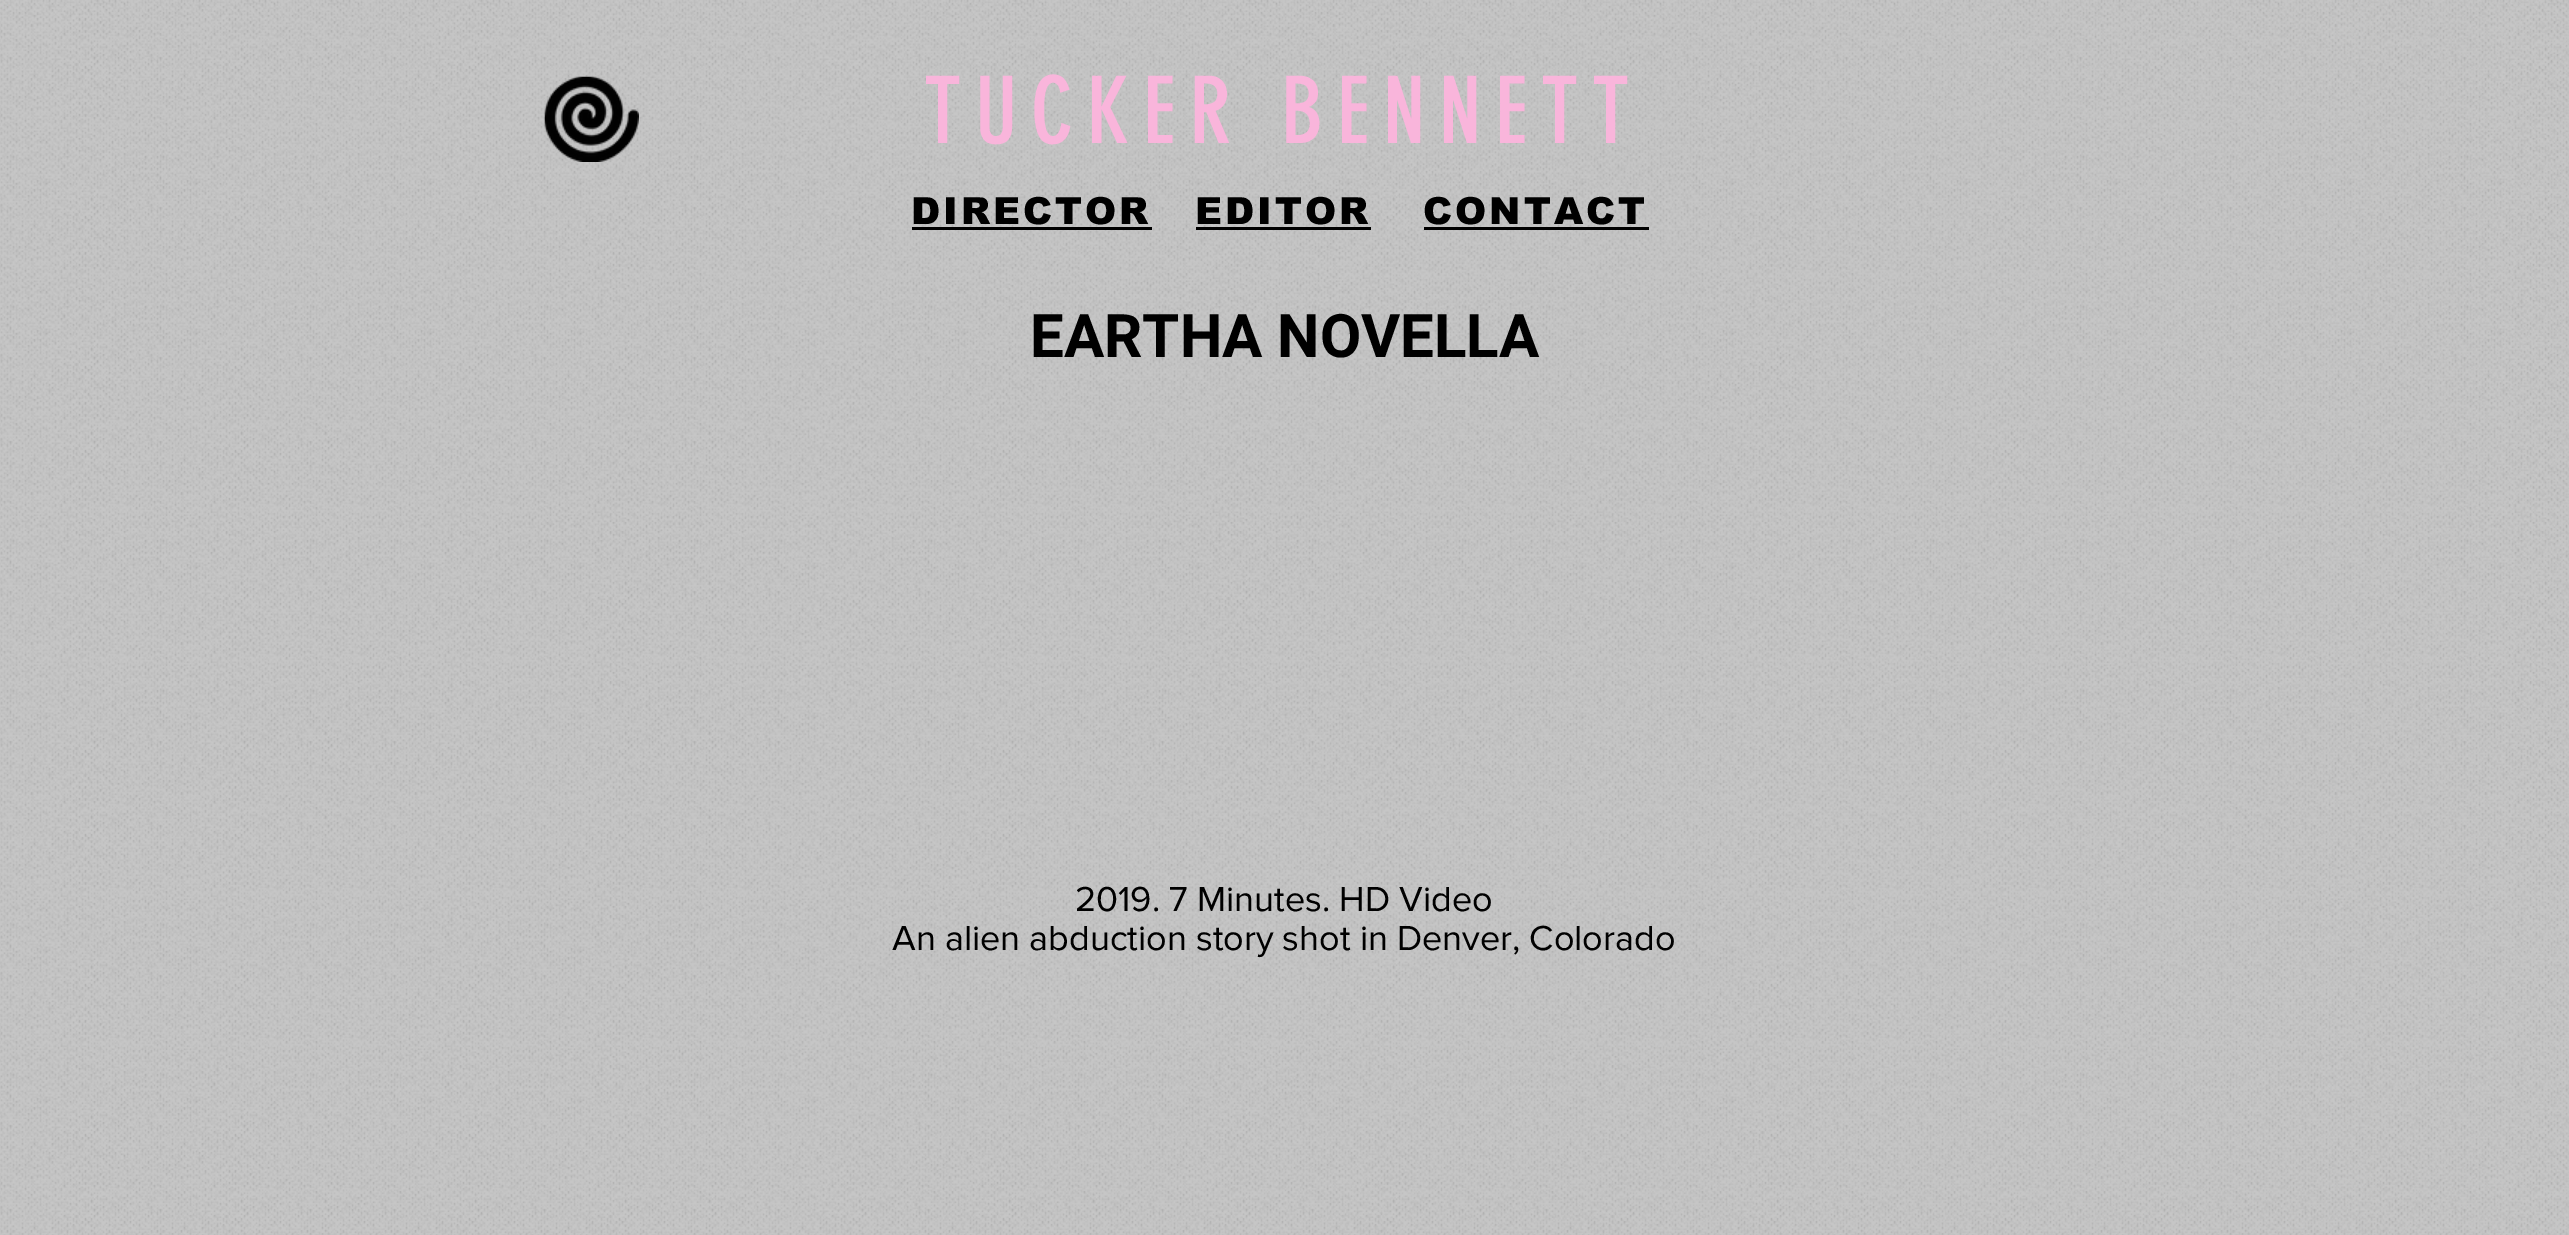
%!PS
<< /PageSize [2569 1235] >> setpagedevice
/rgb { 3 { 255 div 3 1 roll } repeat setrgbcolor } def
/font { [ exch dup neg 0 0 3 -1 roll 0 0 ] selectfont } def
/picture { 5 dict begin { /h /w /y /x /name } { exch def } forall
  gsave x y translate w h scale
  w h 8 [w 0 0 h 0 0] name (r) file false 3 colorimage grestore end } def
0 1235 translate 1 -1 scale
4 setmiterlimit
198 198 198 rgb
0 0 2569 1235 rectfill
(img/1.rgb) 0 0 2569 1235 picture
(img/2.rgb) 544 76 95 86 picture
[
  [912 227 240 3 0 0 0]
  [1196 227 175 3 0 0 0]
  [1424 227 225 3 0 0 0]
] { aload pop rgb rectfill } forall
/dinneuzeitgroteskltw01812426-Regular 91.5 font
249 181 219 rgb
924 143 moveto 13.75 0 (TUCKER BENNETT) ashow
/arial-Black 37.5 font
0 0 0 rgb
911 224 moveto 3 0 (DIRECTOR) ashow
1195 224 moveto 3 0 (EDITOR) ashow
1423 224 moveto 3 0 (CONTACT) ashow
/Roboto-Bold 60 font
1030 357 moveto (EARTHA NOVELLA) show
/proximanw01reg-Regular 36 font
1075 911 moveto (2019. 7 Minutes. HD Video) show
892 950 moveto (An alien abduction story shot in Denver, Colorado) show
showpage
